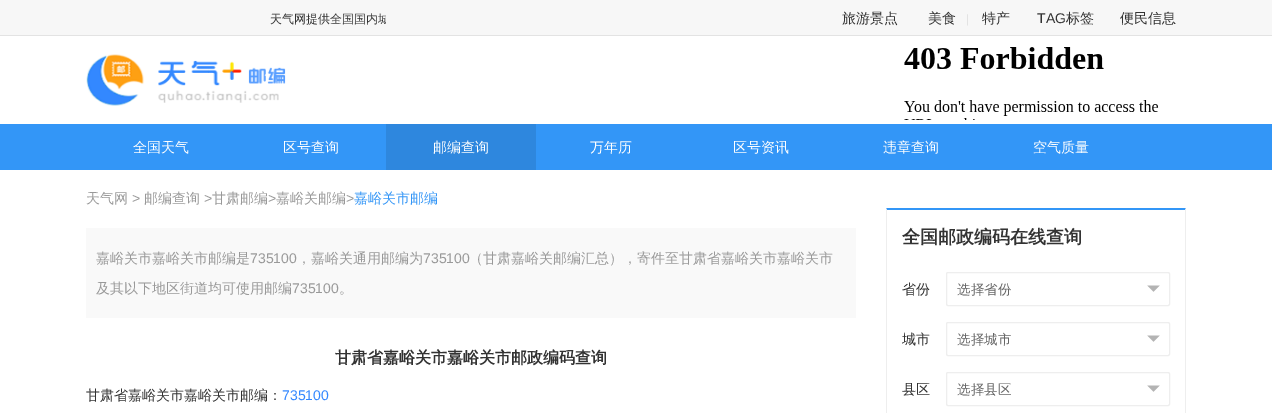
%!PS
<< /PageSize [1272 413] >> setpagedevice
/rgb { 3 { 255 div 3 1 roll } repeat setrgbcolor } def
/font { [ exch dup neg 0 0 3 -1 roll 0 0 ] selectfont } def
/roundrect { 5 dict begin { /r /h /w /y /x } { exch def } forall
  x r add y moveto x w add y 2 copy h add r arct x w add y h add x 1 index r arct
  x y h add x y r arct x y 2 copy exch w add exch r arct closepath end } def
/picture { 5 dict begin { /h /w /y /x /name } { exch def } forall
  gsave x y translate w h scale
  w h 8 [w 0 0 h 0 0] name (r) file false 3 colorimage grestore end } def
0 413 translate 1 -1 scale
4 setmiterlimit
255 255 255 rgb
0 0 1272 413 rectfill
247 247 247 rgb
0 0 1272 35 rectfill
227 227 227 rgb
0 35 1272 1 rectfill
(img/1.rgb) 86 54 200 52 picture
(img/2.rgb) 904 47 255 73 picture
[
  [0 124 1272 46 51 150 247]
  [386 124 150 46 46 135 222]
  [86 228 770 90 249 249 249]
] { aload pop rgb rectfill } forall
51 150 247 rgb
886 208 moveto 1186 208 lineto 1185 210 lineto 887 210 lineto closepath fill
238 238 238 rgb
1186 208 moveto 1186 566 lineto 1185 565 lineto 1185 210 lineto closepath fill
886 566 moveto 886 208 lineto 887 210 lineto 887 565 lineto closepath fill
946.5 272.5 223 33 1.5 roundrect stroke
(img/3.rgb) 1147 285 13 7 picture
946.5 322.5 223 33 1.5 roundrect stroke
(img/3.rgb) 1147 335 13 7 picture
946.5 372.5 223 33 1.5 roundrect stroke
(img/3.rgb) 1147 385 13 7 picture
gsave
86 1 300 36 rectclip
/WenQuanYiZenHei-Medium 12 font
51 51 51 rgb
270 23 moveto (天气网提供全国国内城) show
grestore
/WenQuanYiZenHei-Medium 14 font
51 51 51 rgb
842 23 moveto (旅游景点) show
928 23 moveto (美食) show
/LiberationSans-Regular 12 font
227 227 227 rgb
966 23 moveto (|) show
/WenQuanYiZenHei-Medium 14 font
51 51 51 rgb
982 23 moveto (特产) show
/LiberationSans-Regular 14 font
1037 23 moveto (TAG) show
/WenQuanYiZenHei-Medium 14 font
1066 23 moveto (标签) show
1120 23 moveto (便民信息) show
255 255 255 rgb
[
  [(全国天气) 133 152]
  [(区号查询) 283 152]
  [(邮编查询) 433 152]
  [(万年历) 590 152]
  [(区号资讯) 733 152]
  [(违章查询) 883 152]
  [(空气质量) 1033 152]
] { aload pop moveto show } forall
153 153 153 rgb
86 203 moveto (天气网) show
/LiberationSans-Regular 14 font
132 203 moveto (>) show
/WenQuanYiZenHei-Medium 14 font
144 203 moveto (邮编查询) show
/LiberationSans-Regular 14 font
204 203 moveto (>) show
/WenQuanYiZenHei-Medium 14 font
212 203 moveto (甘肃邮编) show
/LiberationSans-Regular 14 font
268 203 moveto (>) show
/WenQuanYiZenHei-Medium 14 font
276 203 moveto (嘉峪关邮编) show
/LiberationSans-Regular 14 font
346 203 moveto (>) show
/WenQuanYiZenHei-Medium 14 font
51 150 247 rgb
354 203 moveto (嘉峪关市邮编) show
153 153 153 rgb
96 263 moveto (嘉峪关市嘉峪关市邮编是) show
/LiberationSans-Regular 14 font
250 263 moveto (735100) show
/WenQuanYiZenHei-Medium 14 font
297 263 moveto (，嘉峪关通用邮编为) show
/LiberationSans-Regular 14 font
423 263 moveto (735100) show
/WenQuanYiZenHei-Medium 14 font
469 263 moveto (（甘肃嘉峪关邮编汇总），寄件至甘肃省嘉峪关市嘉峪关市) show
96 293 moveto (及其以下地区街道均可使用邮编) show
/LiberationSans-Regular 14 font
292 293 moveto (735100) show
/WenQuanYiZenHei-Medium 14 font
339 293 moveto (。) show
/WenQuanYiZenHei-Bold 16 font
51 51 51 rgb
335 363 moveto (甘肃省嘉峪关市嘉峪关市邮政编码查询) show
/WenQuanYiZenHei-Medium 14 font
86 400 moveto (甘肃省嘉峪关市嘉峪关市邮编：) show
/LiberationSans-Regular 14 font
51 136 255 rgb
282 400 moveto (735100) show
/WenQuanYiZenHei-Bold 18 font
51 51 51 rgb
902 243 moveto (全国邮政编码在线查询) show
/WenQuanYiZenHei-Medium 14 font
902 294 moveto (省份) show
/WenQuanYiZenHei-Medium 13.5 font
102 102 102 rgb
957 294 moveto (选择省份) show
/WenQuanYiZenHei-Medium 14 font
51 51 51 rgb
902 344 moveto (城市) show
/WenQuanYiZenHei-Medium 13.5 font
102 102 102 rgb
957 344 moveto (选择城市) show
/WenQuanYiZenHei-Medium 14 font
51 51 51 rgb
902 394 moveto (县区) show
/WenQuanYiZenHei-Medium 13.5 font
102 102 102 rgb
957 394 moveto (选择县区) show
showpage
